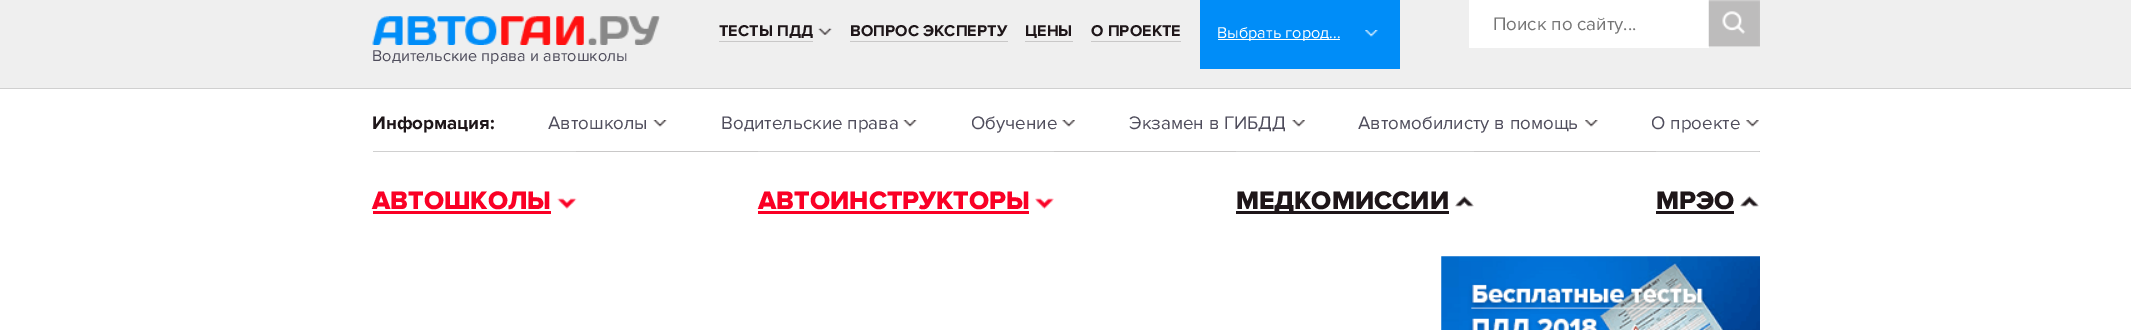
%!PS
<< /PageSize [2131 330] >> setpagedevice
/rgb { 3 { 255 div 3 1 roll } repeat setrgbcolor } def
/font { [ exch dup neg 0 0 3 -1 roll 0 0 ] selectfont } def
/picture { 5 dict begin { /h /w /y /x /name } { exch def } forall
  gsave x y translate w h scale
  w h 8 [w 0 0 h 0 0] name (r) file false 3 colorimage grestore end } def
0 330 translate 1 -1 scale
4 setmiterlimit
255 255 255 rgb
0 0 2131 330 rectfill
239 239 239 rgb
0 0 2131 88 rectfill
208 208 208 rgb
0 88 2131 1 rectfill
(img/1.rgb) 818 28 14 7 picture
[
  [719 41 94 1 201 200 200]
  [850 41 158 1 201 200 200]
  [1025 41 48 1 201 200 200]
  [1091 41 90 1 201 200 200]
  [1200 0 200 69 0 141 248]
] { aload pop rgb rectfill } forall
(img/2.rgb) 1365 30 13 7 picture
255 255 255 rgb
1218 39 122 1 rectfill
1469 0 240 48 rectfill
(img/3.rgb) 1708 0 52 47 picture
(img/4.rgb) 372 16 288 29 picture
201 200 200 rgb
576 151 1184 1 rectfill
(img/5.rgb) 653 120 14 7 picture
(img/6.rgb) 903 120 14 7 picture
(img/7.rgb) 1062 120 13 7 picture
(img/8.rgb) 1292 120 13 7 picture
(img/9.rgb) 1585 120 13 7 picture
(img/10.rgb) 1746 120 13 7 picture
208 208 208 rgb
373 151 203 1 rectfill
(img/11.rgb) 557 198 20 11 picture
250 0 37 rgb
373 211 178 3 rectfill
208 208 208 rgb
758 151 296 1 rectfill
(img/12.rgb) 1035 198 19 11 picture
250 0 37 rgb
758 211 271 3 rectfill
208 208 208 rgb
1236 151 238 1 rectfill
(img/13.rgb) 1455 196 19 11 picture
30 22 25 rgb
1236 211 213 3 rectfill
208 208 208 rgb
1656 151 103 1 rectfill
(img/14.rgb) 1740 196 19 11 picture
30 22 25 rgb
1656 211 78 3 rectfill
(img/15.rgb) 1441 256 319 74 picture
/ProximaNova-Bold 16.25 font
[
  [(ТЕСТЫ ПДД) 719 36]
  [(ВОПРОС ЭКСПЕРТУ) 850 36]
  [(ЦЕНЫ) 1025 36]
  [(О ПРОЕКТЕ) 1091 36]
] { aload pop moveto show } forall
/ProximaNova-Regular 16.25 font
255 255 255 rgb
1217 38 moveto (Выбрать город...) show
/ProximaNova-Regular 18.75 font
117 117 117 rgb
1493 30 moveto (Поиск по сайту...) show
/ProximaNova-Regular 16.25 font
79 77 92 rgb
372 61 moveto (Водительские права и автошколы) show
/ProximaNova-Bold 18.75 font
30 22 25 rgb
372 129 moveto (Информация:) show
/ProximaNova-Regular 18.75 font
79 77 92 rgb
[
  [(Автошколы) 548 129]
  [(Водительские права) 721 129]
  [(Обучение) 971 129]
  [(Экзамен в ГИБДД) 1129 129]
  [(Автомобилисту в помощь) 1358 129]
  [(О проекте) 1651 129]
] { aload pop moveto show } forall
/ProximaNova-ExtraBold 26.25 font
250 0 37 rgb
372 209 moveto (АВТОШКОЛЫ) show
758 209 moveto (АВТОИНСТРУКТОРЫ) show
30 22 25 rgb
1236 209 moveto (МЕДКОМИССИИ) show
1656 209 moveto (МРЭО) show
showpage
